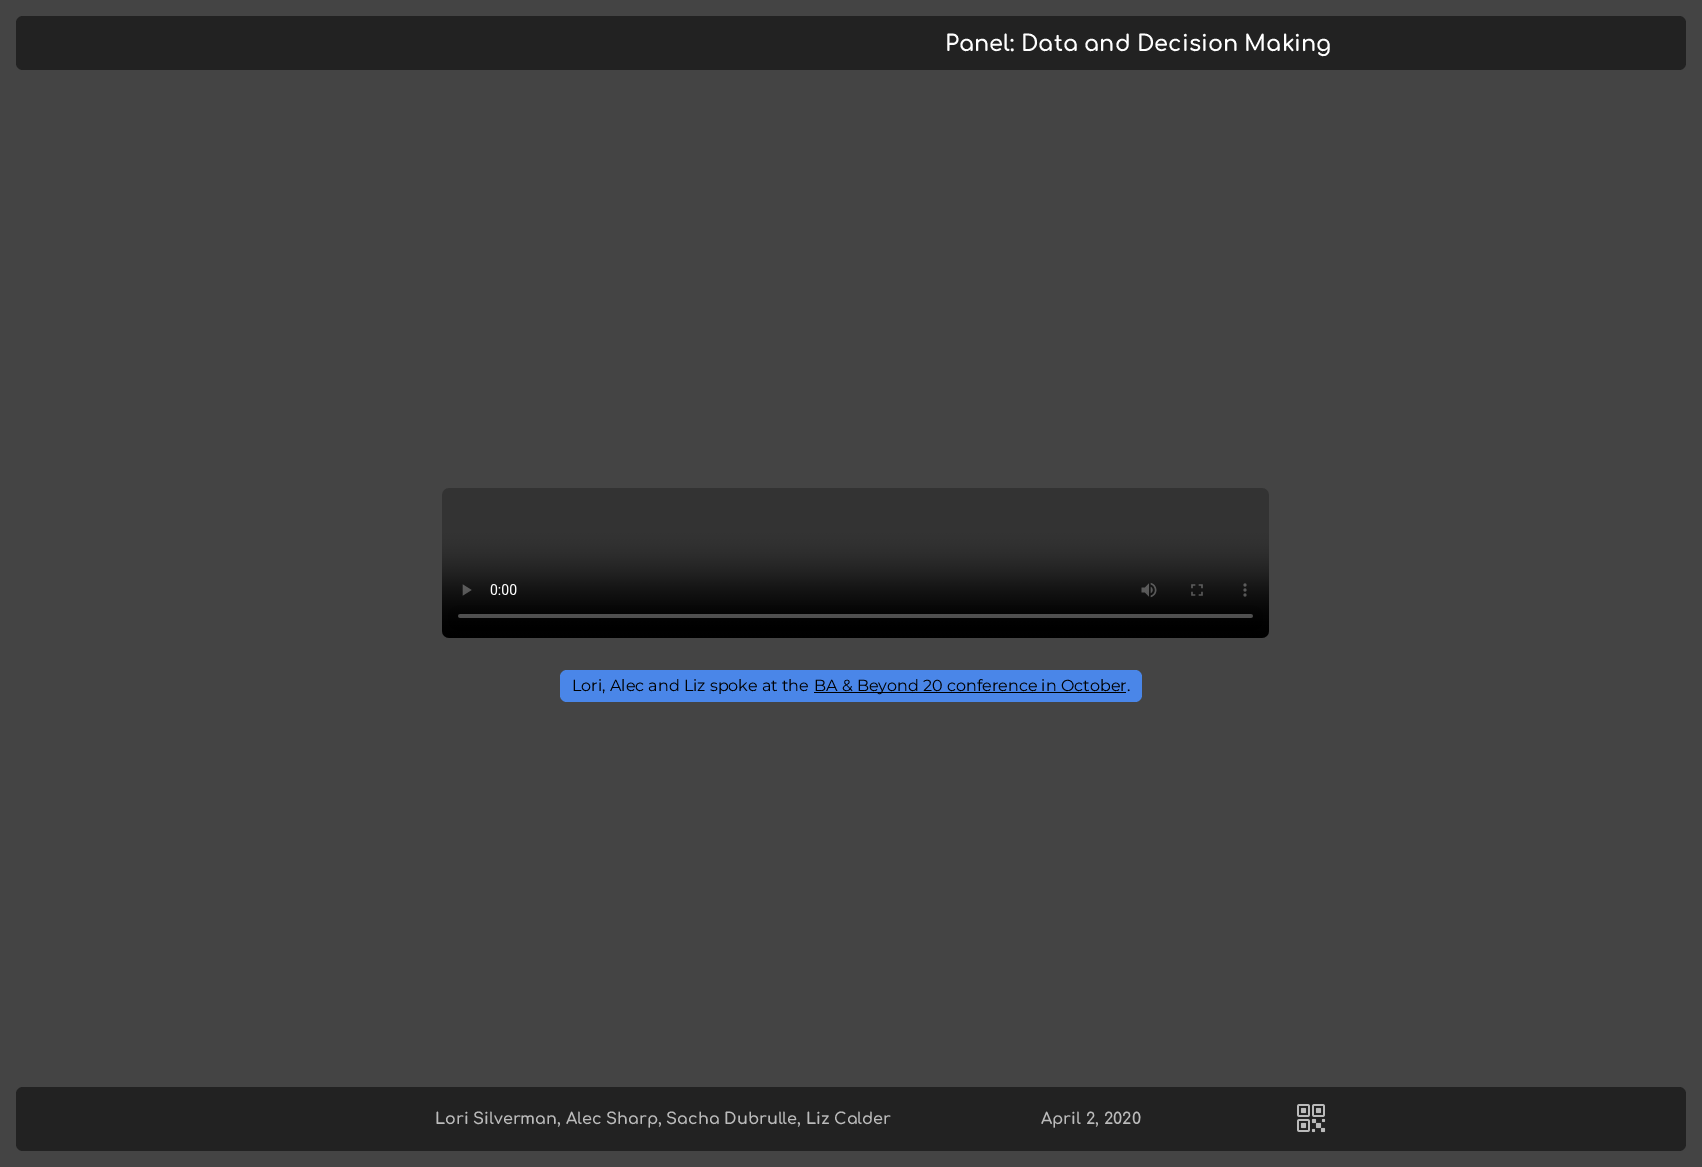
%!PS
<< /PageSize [1702 1167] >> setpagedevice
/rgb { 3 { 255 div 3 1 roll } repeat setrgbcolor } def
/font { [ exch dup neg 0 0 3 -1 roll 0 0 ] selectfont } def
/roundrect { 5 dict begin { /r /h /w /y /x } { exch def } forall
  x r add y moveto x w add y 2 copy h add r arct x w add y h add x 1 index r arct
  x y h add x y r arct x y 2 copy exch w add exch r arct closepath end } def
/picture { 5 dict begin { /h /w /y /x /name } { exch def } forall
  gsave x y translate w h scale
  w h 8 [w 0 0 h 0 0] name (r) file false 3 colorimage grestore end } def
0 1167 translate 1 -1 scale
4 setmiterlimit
68 68 68 rgb
0 0 1702 1167 rectfill
34 34 34 rgb
16 16 1670 54 7 roundrect fill
(img/1.rgb) 442 488 827 150 picture
74 134 232 rgb
560 670 582 32 7 roundrect fill
0 0 0 rgb
814 692 312 1 rectfill
34 34 34 rgb
16 1087 1670 64 7 roundrect fill
(img/2.rgb) 1297 1104 29 29 picture
/Comfortaa-Bold 22.4 font
255 255 255 rgb
945 51 moveto (Panel: Data and Decision Making) show
/Montserrat-Regular 16 font
0 0 0 rgb
572 691 moveto (Lori, Alec and Liz spoke at the) show
814 691 moveto (BA & Beyond 20 conference in October.) show
/Comfortaa-Bold 16 font
187 187 187 rgb
435 1124 moveto (Lori Silverman, Alec Sharp, Sacha Dubrulle, Liz Calder) show
1041 1124 moveto (April 2, 2020) show
showpage
